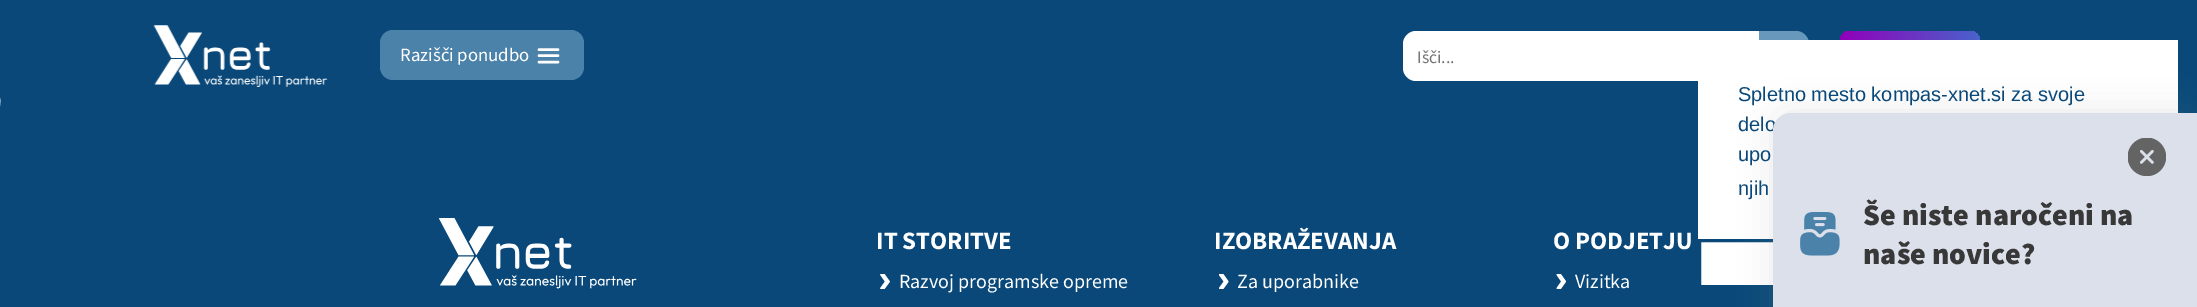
%!PS
<< /PageSize [2197 307] /PageUsesTransparency true >> setpagedevice
/rgb { 3 { 255 div 3 1 roll } repeat setrgbcolor } def
/font { [ exch dup neg 0 0 3 -1 roll 0 0 ] selectfont } def
/alpha { dup .setfillconstantalpha .setstrokeconstantalpha } def
/roundrect { 5 dict begin { /r /h /w /y /x } { exch def } forall
  x r add y moveto x w add y 2 copy h add r arct x w add y h add x 1 index r arct
  x y h add x y r arct x y 2 copy exch w add exch r arct closepath end } def
/shadow { 12 dict begin { /a /b /q /h /w /y /x } { exch def } forall gsave /was 0 def
  9 -2 -9 { dup b mul 4 div /e exch def 1 sub .425 mul 2.718 exch exp 1 add a .99 .min exch div /now exch def
    1 1 now sub 1 was sub div sub alpha /was now def
    w h .min e 2 mul add 0 gt { x e sub y e sub w e 2 mul add h e 2 mul add
      q e add b .6 mul add w h .min 2 div e add .min 0 .max roundrect fill } if } for grestore end } def
/picture { 5 dict begin { /h /w /y /x /name } { exch def } forall
  gsave x y translate w h scale
  w h 8 [w 0 0 h 0 0] name (r) file false 3 colorimage grestore end } def
0 .pushpdf14devicefilter
0 307 translate 1 -1 scale
4 setmiterlimit
255 255 255 rgb
0 0 2197 307 rectfill
9 72 121 rgb
0 116 moveto 0 110 0 105 1 99 curveto 4 85 20 85 31 85 curveto 2164 6 lineto 2176 6 2193 4 2197 20 curveto 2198 25 2197 32 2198 37 curveto 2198 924 lineto 0 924 lineto closepath fill
0 0 moveto 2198 0 lineto 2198 95 lineto 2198 105 2190 113 2180 113 curveto 18 113 lineto 8 113 0 105 0 95 curveto closepath fill
(img/1.rgb) 153 25 175 62 picture
75 130 170 rgb
380 30 204 50 13 roundrect fill
255 255 255 rgb
2.5 setlinewidth
1 setlinecap
1 setlinejoin
539 49.5 moveto 558 49.5 lineto 539 55.5 moveto 558 55.5 lineto 539 62 moveto 558 62 lineto stroke
1416 31 moveto 1759 31 lineto 1759 81 lineto 1416 81 lineto 1409 81 1403 75 1403 68 curveto 1403 44 lineto 1403 37 1409 31 1416 31 curveto closepath fill
104 153 189 rgb
1759 31 moveto 1796 31 lineto 1803 31 1809 37 1809 44 curveto 1809 68 lineto 1809 75 1803 81 1796 81 curveto 1759 81 lineto closepath fill
gsave 1840 31 140 50 10 roundrect clip newpath
<< /ShadingType 2 /ColorSpace /DeviceRGB /Coords [1840 56 2120 56] /Extend [true true] /Function << /FunctionType 2 /Domain [0 1] /C0 [0.569 0 0.729] /C1 [0 0.773 0.867] /N 1 >> >> shfill grestore
255 255 255 rgb
1698 40 480 245 rectfill
9 72 121 rgb
3 setlinewidth
0 setlinecap
0 setlinejoin
1699.5 240.5 477 46 rectstroke
(img/2.rgb) 439 218 198 71 picture
(img/3.rgb) 880 274 10 15 picture
(img/4.rgb) 1219 274 10 15 picture
(img/5.rgb) 1556 274 10 15 picture
142 142 142 rgb
1773 113 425 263 18 17 0.2 shadow
/SourceSansPro-Regular 18.75 font
255 255 255 rgb
400 61 moveto (Razišči ponudbo) show
/SourceSansPro-Regular 17.5 font
117 117 117 rgb
1417 63 moveto (Išči...) show
/LiberationSans-Regular 20 font
9 72 121 rgb
[
  [(Spletno mesto kompas-xnet.si za svoje) 1738 101]
  [(delo) 1738 131]
  [(upo) 1738 161]
  [(njih) 1738 195]
] { aload pop moveto show } forall
/SourceSansPro-Bold 25 font
255 255 255 rgb
876 249 moveto (IT STORITVE) show
/SourceSansPro-Regular 20 font
899 288 moveto (Razvoj programske opreme) show
/SourceSansPro-Bold 25 font
1214 249 moveto (IZOBRAŽEVANJA) show
/SourceSansPro-Regular 20 font
1237 288 moveto (Za uporabnike) show
/SourceSansPro-Bold 25 font
1553 249 moveto (O PODJETJU) show
/SourceSansPro-Regular 20 font
1575 288 moveto (Vizitka) show
219 224 234 rgb
1791 113 moveto 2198 113 lineto 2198 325 lineto 1791 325 lineto 1781 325 1773 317 1773 307 curveto 1773 131 lineto 1773 121 1781 113 1791 113 curveto closepath fill
(img/6.rgb) 2128 138 38 38 picture
(img/7.rgb) 1800 212 40 44 picture
/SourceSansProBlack-Black 30 font
56 56 56 rgb
1863 225 moveto (Še niste naročeni na) show
1863 264 moveto (naše novice?) show
.poppdf14devicefilter showpage
